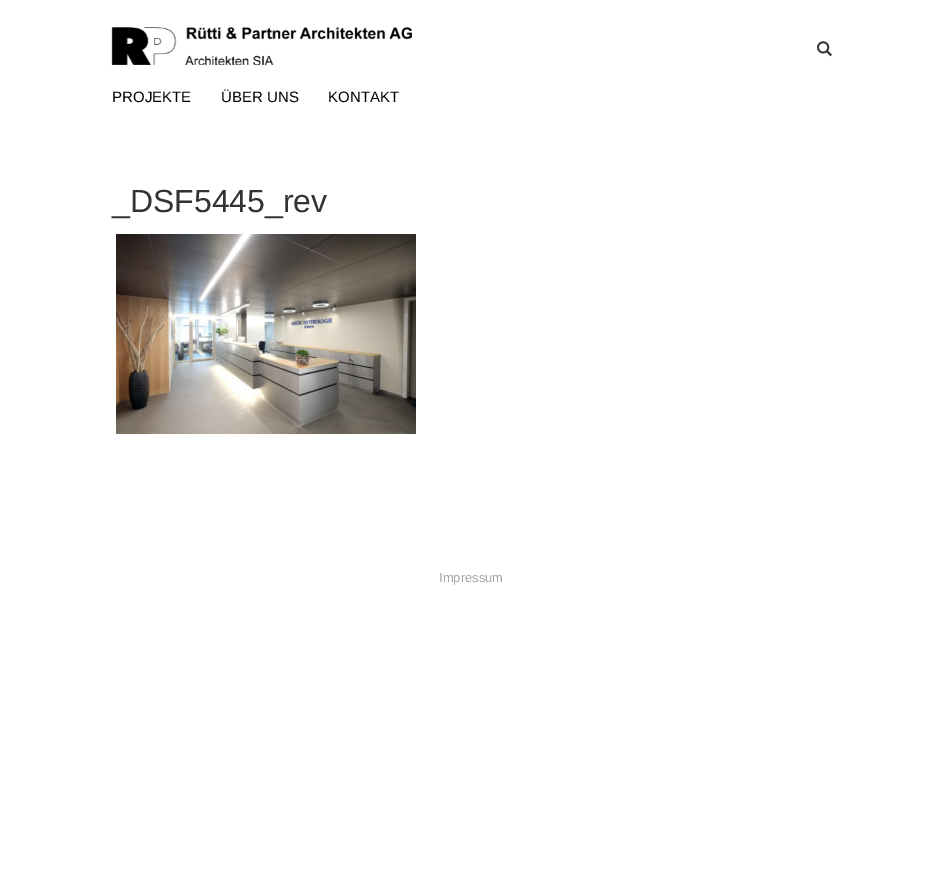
%!PS
<< /PageSize [943 889] >> setpagedevice
/rgb { 3 { 255 div 3 1 roll } repeat setrgbcolor } def
/font { [ exch dup neg 0 0 3 -1 roll 0 0 ] selectfont } def
/picture { 5 dict begin { /h /w /y /x /name } { exch def } forall
  gsave x y translate w h scale
  w h 8 [w 0 0 h 0 0] name (r) file false 3 colorimage grestore end } def
0 889 translate 1 -1 scale
4 setmiterlimit
255 255 255 rgb
0 0 943 889 rectfill
(img/1.rgb) 111 27 301 38 picture
(img/2.rgb) 817 41 15 16 picture
(img/3.rgb) 116 234 300 200 picture
/LiberationSans-Regular 15 font
0 0 0 rgb
[
  [(PROJEKTE) 112 102]
  [(ÜBER UNS) 221 102]
  [(KONTAKT) 328 102]
] { aload pop moveto show } forall
/LiberationSans-Regular 32 font
51 51 51 rgb
112 212 moveto (_DSF5445_rev) show
/LiberationSans-Regular 13 font
166 166 166 rgb
439 582 moveto (Impressum) show
showpage
